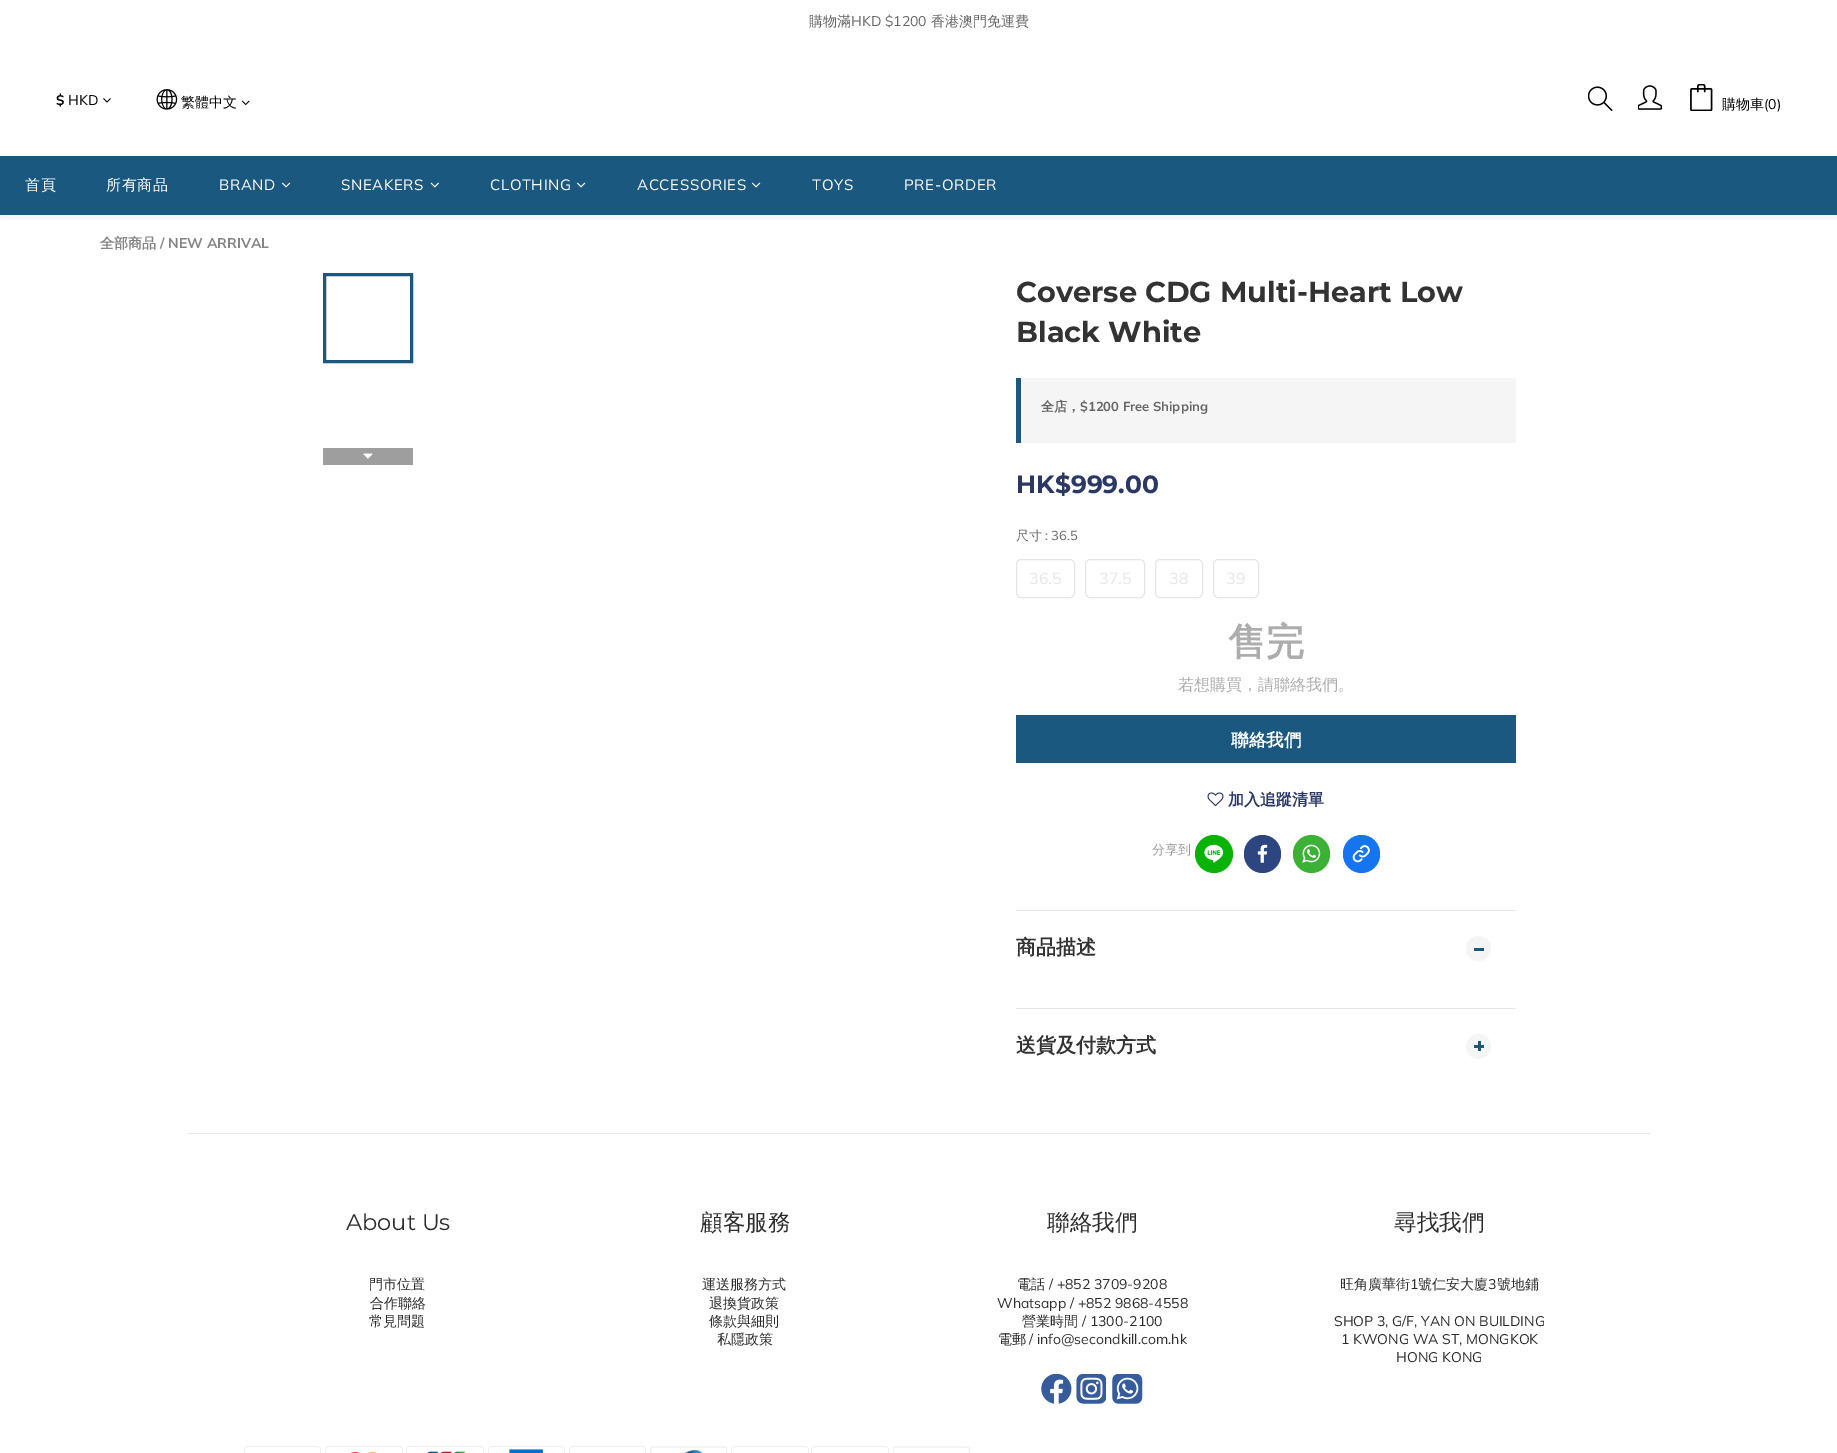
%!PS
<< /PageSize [1837 1453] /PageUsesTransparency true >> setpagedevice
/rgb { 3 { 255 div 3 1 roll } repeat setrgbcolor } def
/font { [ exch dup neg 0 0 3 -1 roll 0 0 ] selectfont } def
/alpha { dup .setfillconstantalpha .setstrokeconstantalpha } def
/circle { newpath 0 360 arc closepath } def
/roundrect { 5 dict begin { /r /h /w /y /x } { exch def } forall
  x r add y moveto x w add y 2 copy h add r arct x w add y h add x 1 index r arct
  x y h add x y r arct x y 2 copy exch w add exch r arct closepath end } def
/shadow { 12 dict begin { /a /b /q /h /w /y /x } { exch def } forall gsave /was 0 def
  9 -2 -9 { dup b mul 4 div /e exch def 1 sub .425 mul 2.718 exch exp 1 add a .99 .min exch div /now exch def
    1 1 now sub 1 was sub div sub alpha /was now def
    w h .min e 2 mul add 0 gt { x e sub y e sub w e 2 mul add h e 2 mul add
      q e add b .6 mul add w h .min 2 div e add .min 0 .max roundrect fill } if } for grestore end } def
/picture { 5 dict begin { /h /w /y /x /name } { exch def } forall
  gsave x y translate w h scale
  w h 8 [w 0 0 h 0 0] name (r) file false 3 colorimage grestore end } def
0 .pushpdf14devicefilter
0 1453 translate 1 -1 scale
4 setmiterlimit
255 255 255 rgb
0 0 1837 1453 rectfill
gsave
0 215 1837 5 rectclip
0 0 0 rgb
0 46 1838 172 0 4 0.06 shadow
grestore
(img/1.rgb) 103 98 8 5 picture
(img/2.rgb) 156 89 22 21 picture
(img/3.rgb) 241 100 9 6 picture
(img/4.rgb) 1588 86 25 25 picture
(img/5.rgb) 1638 85 25 25 picture
(img/6.rgb) 1690 84 23 27 picture
27 88 128 rgb
0 156 1837 59 rectfill
(img/7.rgb) 281 182 10 6 picture
(img/8.rgb) 430 182 9 6 picture
(img/7.rgb) 576 182 10 6 picture
(img/7.rgb) 751 182 10 6 picture
3 setlinewidth
324.5 274.5 87 87 rectstroke
158 158 158 rgb
323 448 90 17 rectfill
(img/9.rgb) 363 453 10 6 picture
245 245 245 rgb
1021 378 495 65 rectfill
27 88 128 rgb
1016 378 5 65 rectfill
230 230 230 rgb
1 setlinewidth
1016.5 559.5 58 38 4.5 roundrect stroke
1085.5 559.5 59 38 4.5 roundrect stroke
1155.5 559.5 47 38 4.5 roundrect stroke
1213.5 559.5 45 38 4.5 roundrect stroke
27 88 128 rgb
1016 715 500 48 rectfill
(img/10.rgb) 1207 792 17 15 picture
9 179 5 rgb
1214 854 19 circle fill
(img/11.rgb) 1204 844 20 19 picture
45 70 130 rgb
1244 835 37 38 18.5 roundrect fill
(img/12.rgb) 1257 844 11 19 picture
60 177 54 rgb
1293 835 37 38 18.5 roundrect fill
(img/13.rgb) 1302 844 19 19 picture
21 117 240 rgb
1343 835 37 38 18.5 roundrect fill
(img/14.rgb) 1352 845 18 18 picture
230 230 230 rgb
1016 910 500 1 rectfill
245 245 245 rgb
1478.5 948.5 12.5 circle fill
27 88 128 rgb
1474 948 10 3 rectfill
230 230 230 rgb
1016 1008 500 1 rectfill
245 245 245 rgb
1478.5 1046.5 12.5 circle fill
[
  [1474 1045 10 3 27 88 128]
  [1478 1041 3 10 27 88 128]
  [188 1133 1462 1 230 230 230]
] { aload pop rgb rectfill } forall
(img/15.rgb) 1041 1374 31 30 picture
(img/16.rgb) 1076 1374 30 30 picture
(img/17.rgb) 1112 1374 31 30 picture
(img/18.rgb) 244 1446 77 7 picture
(img/19.rgb) 325 1446 78 7 picture
(img/20.rgb) 406 1446 78 7 picture
(img/21.rgb) 488 1446 77 7 picture
(img/18.rgb) 569 1446 77 7 picture
(img/22.rgb) 650 1446 78 7 picture
(img/23.rgb) 731 1446 78 7 picture
(img/23.rgb) 811 1446 78 7 picture
(img/24.rgb) 893 1446 77 7 picture
/WenQuanYiZenHei-Medium 14 font
102 102 102 rgb
809 26 moveto (購物滿) show
/Mulish-Regular 14 font
851 26 moveto (HKD $1200) show
/WenQuanYiZenHei-Medium 14 font
931 26 moveto (香港澳門免運費) show
/Mulish-Bold 14 font
0 0 0 rgb
56 105 moveto ($) show
/Mulish-Regular 14 font
68 105 moveto (HKD) show
/WenQuanYiZenHei-Medium 14 font
181 107 moveto (繁體中文) show
1722 109 moveto (購物車) show
/Mulish-Regular 14 font
1764 109 moveto (\(0\)) show
/WenQuanYiZenHei-Medium 15 font
255 255 255 rgb
25 190 moveto 0.6 0 (首頁) ashow
106 190 moveto 0.6 0 (所有商品) ashow
/Mulish-Regular 15 font
219 190 moveto 0.6 0 (BRAND) ashow
341 190 moveto 0.6 0 (SNEAKERS) ashow
490 190 moveto 0.6 0 (CLOTHING) ashow
637 190 moveto 0.6 0 (ACCESSORIES) ashow
812 190 moveto 0.6 0 (TOYS) ashow
904 190 moveto 0.6 0 (PRE-ORDER) ashow
/WenQuanYiZenHei-Bold 14 font
133 133 133 rgb
100 248 moveto (全部商品) show
/Mulish-Bold 14 font
160 248 moveto (/ NEW ARRIVAL) show
/Montserrat-Bold 28.75 font
51 51 51 rgb
1016 302 moveto (Coverse CDG Multi-Heart Low) show
1016 342 moveto (Black White) show
/WenQuanYiZenHei-Bold 13 font
102 102 102 rgb
1041 411 moveto (全店，) show
/Mulish-Bold 13 font
1080 411 moveto ($1200 Free Shipping) show
/Montserrat-Bold 25 font
43 56 100 rgb
1016 493 moveto (HK$999.00) show
/WenQuanYiZenHei-Medium 13 font
102 102 102 rgb
1016 540 moveto (尺寸) show
/Mulish-Regular 13 font
1045 540 moveto (: 36.5) show
/Mulish-Regular 16 font
230 230 230 rgb
[
  [(36.5) 1029 584]
  [(37.5) 1099 584]
  [(38) 1169 584]
  [(39) 1226 584]
] { aload pop moveto show } forall
/WenQuanYiZenHei-Bold 38 font
173 173 173 rgb
1228 655 moveto (售完) show
/WenQuanYiZenHei-Medium 16 font
1178 690 moveto (若想購買，請聯絡我們。) show
/WenQuanYiZenHei-Bold 17.5 font
255 255 255 rgb
1231 746 moveto (聯絡我們) show
/WenQuanYiZenHei-Bold 16 font
43 56 100 rgb
1228 805 moveto (加入追蹤清單) show
/WenQuanYiZenHei-Medium 13 font
153 153 153 rgb
1152 854 moveto (分享到) show
/WenQuanYiZenHei-Bold 20 font
51 51 51 rgb
1016 954 moveto (商品描述) show
1016 1052 moveto (送貨及付款方式) show
/Montserrat-Regular 22.5 font
44 44 44 rgb
346 1230 moveto (About Us) show
/WenQuanYiZenHei-Medium 14 font
[
  [(門市位置) 369 1289]
  [(合作聯絡) 370 1308]
  [(常見問題) 369 1326]
] { aload pop moveto show } forall
/WenQuanYiZenHei-Medium 22.5 font
700 1230 moveto (顧客服務) show
/WenQuanYiZenHei-Medium 14 font
[
  [(運送服務方式) 702 1289]
  [(退換貨政策) 709 1308]
  [(條款與細則) 709 1326]
  [(私隱政策) 717 1344]
] { aload pop moveto show } forall
/WenQuanYiZenHei-Medium 22.5 font
1047 1230 moveto (聯絡我們) show
/WenQuanYiZenHei-Medium 14 font
1017 1289 moveto (電話) show
/Mulish-Regular 14 font
1049 1289 moveto (/ +852 3709-9208) show
997 1308 moveto (Whatsapp / +852 9868-4558) show
/WenQuanYiZenHei-Medium 14 font
1022 1326 moveto (營業時間) show
/Mulish-Regular 14 font
1082 1326 moveto (/ 1300-2100) show
/WenQuanYiZenHei-Medium 14 font
998 1344 moveto (電郵) show
/Mulish-Regular 14 font
1029 1344 moveto (/ info@secondkill.com.hk) show
/WenQuanYiZenHei-Medium 22.5 font
1394 1230 moveto (尋找我們) show
/WenQuanYiZenHei-Medium 14 font
1340 1289 moveto (旺角廣華街) show
/Mulish-Regular 14 font
1410 1289 moveto (1) show
/WenQuanYiZenHei-Medium 14 font
1418 1289 moveto (號仁安大廈) show
/Mulish-Regular 14 font
1488 1289 moveto (3) show
/WenQuanYiZenHei-Medium 14 font
1497 1289 moveto (號地鋪) show
/Mulish-Regular 14 font
[
  [(SHOP 3, G/F, YAN ON BUILDING) 1334 1326]
  [(1 KWONG WA ST, MONGKOK) 1341 1344]
  [(HONG KONG) 1396 1362]
] { aload pop moveto show } forall
.poppdf14devicefilter showpage
